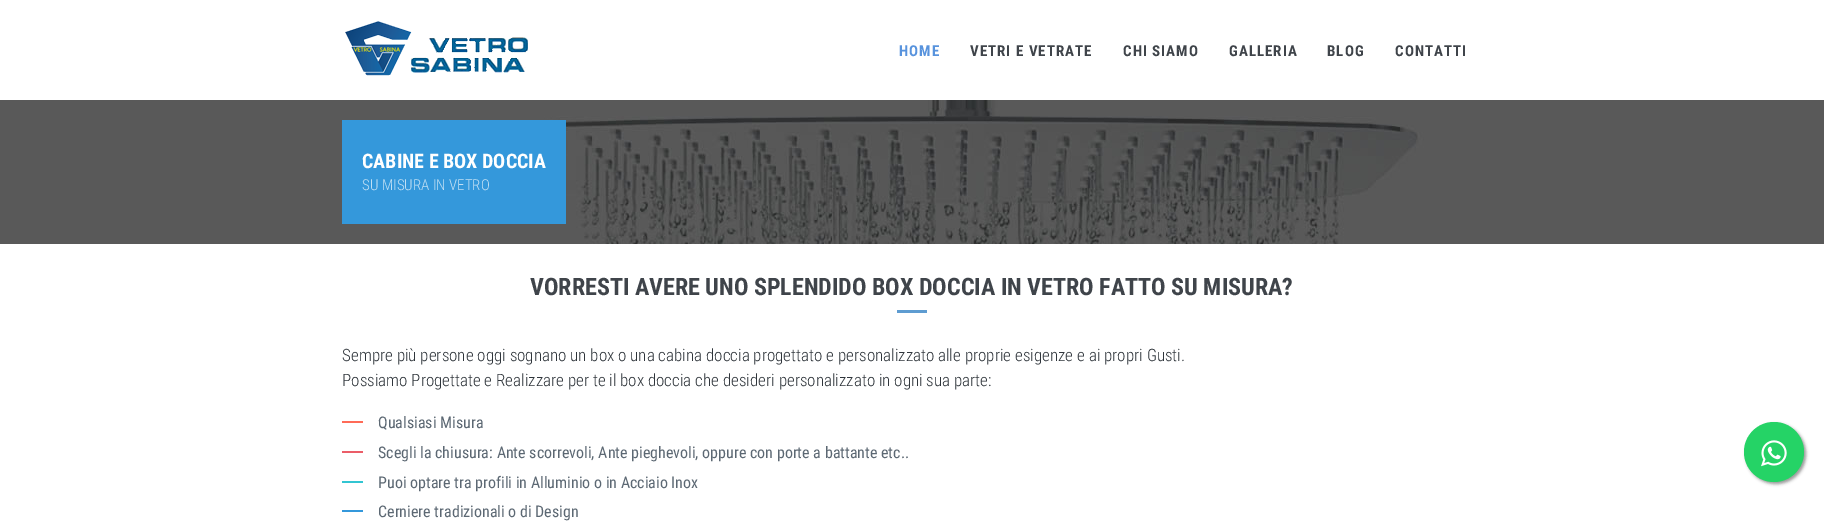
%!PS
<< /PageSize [1824 532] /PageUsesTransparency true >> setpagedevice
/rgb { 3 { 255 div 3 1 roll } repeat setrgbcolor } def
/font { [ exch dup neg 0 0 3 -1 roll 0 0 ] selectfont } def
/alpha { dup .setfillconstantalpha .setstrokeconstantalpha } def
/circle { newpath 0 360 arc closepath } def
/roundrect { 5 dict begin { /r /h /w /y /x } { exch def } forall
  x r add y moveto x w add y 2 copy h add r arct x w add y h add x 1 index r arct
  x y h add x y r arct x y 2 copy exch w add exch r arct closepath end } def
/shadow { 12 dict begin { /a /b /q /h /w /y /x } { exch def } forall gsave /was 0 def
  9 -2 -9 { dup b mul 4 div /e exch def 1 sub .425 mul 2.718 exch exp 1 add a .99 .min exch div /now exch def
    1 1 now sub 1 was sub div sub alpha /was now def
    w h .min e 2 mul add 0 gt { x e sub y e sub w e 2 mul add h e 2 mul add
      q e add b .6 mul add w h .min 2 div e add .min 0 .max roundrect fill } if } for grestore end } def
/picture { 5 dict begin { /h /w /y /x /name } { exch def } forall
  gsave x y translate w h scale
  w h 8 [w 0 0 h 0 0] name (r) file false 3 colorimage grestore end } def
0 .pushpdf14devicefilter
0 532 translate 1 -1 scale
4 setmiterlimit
255 255 255 rgb
0 0 1824 532 rectfill
(img/1.rgb) 345 21 183 55 picture
(img/2.rgb) 0 100 1824 144 picture
[
  [342 120 224 104 52 152 219]
  [897 310 30 3 94 156 209]
  [342 421 21 2 255 107 87]
  [342 451 21 2 235 93 104]
  [342 481 21 2 50 197 210]
  [342 510 21 2 52 152 219]
] { aload pop rgb rectfill } forall
153 153 153 rgb
1746 424 60 60 30 1.5 1 shadow
37 211 102 rgb
1774 452 30 circle fill
(img/3.rgb) 1761 440 26 27 picture
/RobotoCondensed-Bold 15 font
88 147 221 rgb
899 56 moveto 1 0 (HOME) ashow
63 68 74 rgb
970 56 moveto 1 0 (VETRI E VETRATE) ashow
1123 56 moveto 1 0 (CHI SIAMO) ashow
1229 56 moveto 1 0 (GALLERIA) ashow
1327 56 moveto 1 0 (BLOG) ashow
1395 56 moveto 1 0 (CONTATTI) ashow
/RobotoCondensed-Bold 20 font
255 255 255 rgb
362 168 moveto (CABINE E BOX DOCCIA) show
/RobotoCondensed-Light 15 font
194 224 244 rgb
362 190 moveto (SU MISURA IN VETRO) show
/RobotoCondensed-Bold 24 font
63 68 74 rgb
530 295 moveto (VORRESTI AVERE UNO SPLENDIDO BOX DOCCIA IN VETRO FATTO SU MISURA?) show
/RobotoCondensed-Light 17 font
47 53 59 rgb
342 361 moveto (Sempre più persone oggi sognano un box o una cabina doccia progettato e personalizzato alle proprie esigenze e ai propri Gusti.) show
342 386 moveto (Possiamo Progettate e Realizzare per te il box doccia che desideri personalizzato in ogni sua parte:) show
/RobotoCondensed-Regular 16 font
92 104 115 rgb
[
  [(Qualsiasi Misura) 378 428]
  [(Scegli la chiusura: Ante scorrevoli, Ante pieghevoli, oppure con porte a battante etc..) 378 458]
  [(Puoi optare tra profili in Alluminio o in Acciaio Inox) 378 488]
  [(Cerniere tradizionali o di Design) 378 517]
] { aload pop moveto show } forall
.poppdf14devicefilter showpage
